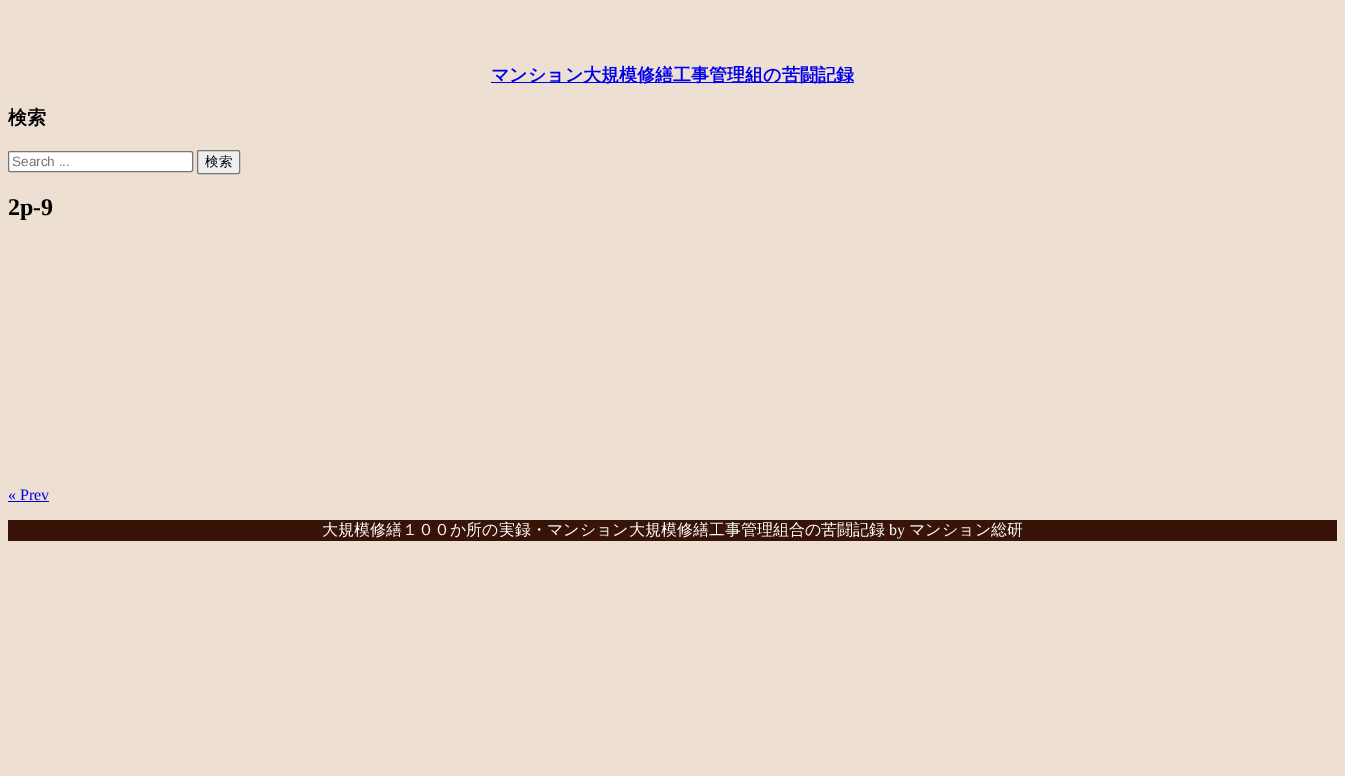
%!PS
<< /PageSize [1345 776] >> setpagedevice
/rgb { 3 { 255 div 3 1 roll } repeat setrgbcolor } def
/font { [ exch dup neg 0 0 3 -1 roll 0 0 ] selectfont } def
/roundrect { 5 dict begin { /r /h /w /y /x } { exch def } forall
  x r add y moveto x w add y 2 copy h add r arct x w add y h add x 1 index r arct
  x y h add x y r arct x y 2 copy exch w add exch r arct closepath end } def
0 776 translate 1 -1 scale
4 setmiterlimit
237 224 211 rgb
0 0 1345 776 rectfill
0 0 238 rgb
491 82 363 1 rectfill
255 255 255 rgb
8.5 151.5 184 20 1.5 roundrect gsave fill grestore
118 118 118 rgb
stroke
239 239 239 rgb
197.5 150.5 42 23 1.5 roundrect gsave fill grestore
118 118 118 rgb
stroke
0 0 238 rgb
8 501 41 1 rectfill
56 19 7 rgb
8 520 1329 21 rectfill
/WenQuanYiZenHei-Bold 18 font
0 0 238 rgb
491 81 moveto (マンション大規模修繕工事管理組の苦闘記録) show
/WenQuanYiZenHei-Bold 19 font
0 0 0 rgb
8 124 moveto (検索) show
/LiberationSans-Regular 13.5 font
117 117 117 rgb
12 166 moveto (Search ...) show
/WenQuanYiZenHei-Medium 13.5 font
0 0 0 rgb
205 166 moveto (検索) show
/LiberationSerif-Bold 24 font
8 215 moveto (2p-9) show
/LiberationSerif-Regular 16 font
0 0 238 rgb
8 500 moveto (« Prev) show
/WenQuanYiZenHei-Medium 16 font
255 255 255 rgb
322 535 moveto (大規模修繕１００か所の実録・マンション大規模修繕工事管理組合の苦闘記録) show
/LiberationSerif-Regular 16 font
889 535 moveto (by) show
/WenQuanYiZenHei-Medium 16 font
909 535 moveto (マンション総研) show
showpage
